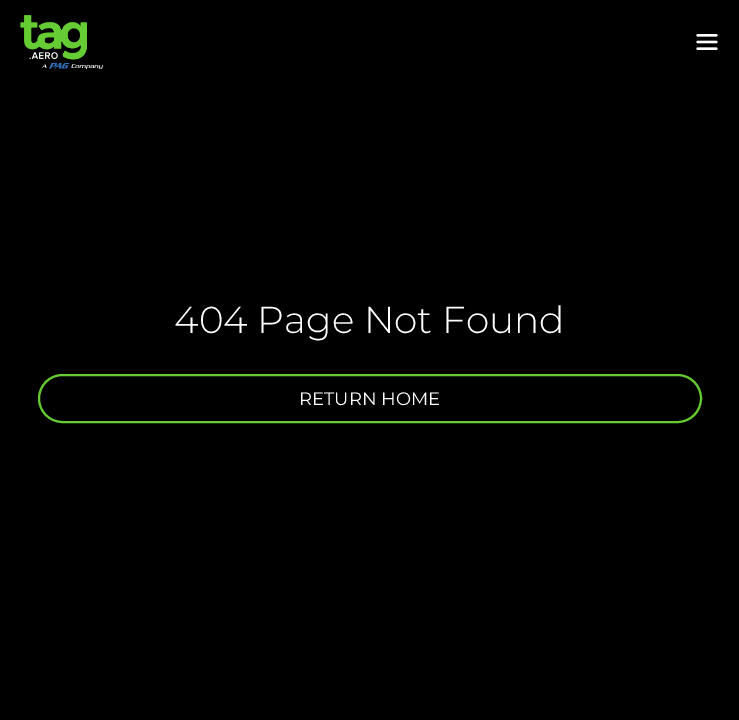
%!PS
<< /PageSize [739 720] >> setpagedevice
/rgb { 3 { 255 div 3 1 roll } repeat setrgbcolor } def
/font { [ exch dup neg 0 0 3 -1 roll 0 0 ] selectfont } def
/roundrect { 5 dict begin { /r /h /w /y /x } { exch def } forall
  x r add y moveto x w add y 2 copy h add r arct x w add y h add x 1 index r arct
  x y h add x y r arct x y 2 copy exch w add exch r arct closepath end } def
/picture { 5 dict begin { /h /w /y /x /name } { exch def } forall
  gsave x y translate w h scale
  w h 8 [w 0 0 h 0 0] name (r) file false 3 colorimage grestore end } def
0 720 translate 1 -1 scale
4 setmiterlimit
0 0 0 rgb
0 0 739 720 rectfill
(img/1.rgb) 20 15 83 54 picture
(img/2.rgb) 696 34 22 16 picture
102 204 51 rgb
2 setlinewidth
39 375 662 47 23.5 roundrect stroke
/Montserrat-Light 37.5 font
255 255 255 rgb
174 333 moveto (404 Page Not Found) show
/Montserrat-Regular 18 font
299 405 moveto (RETURN HOME) show
showpage
